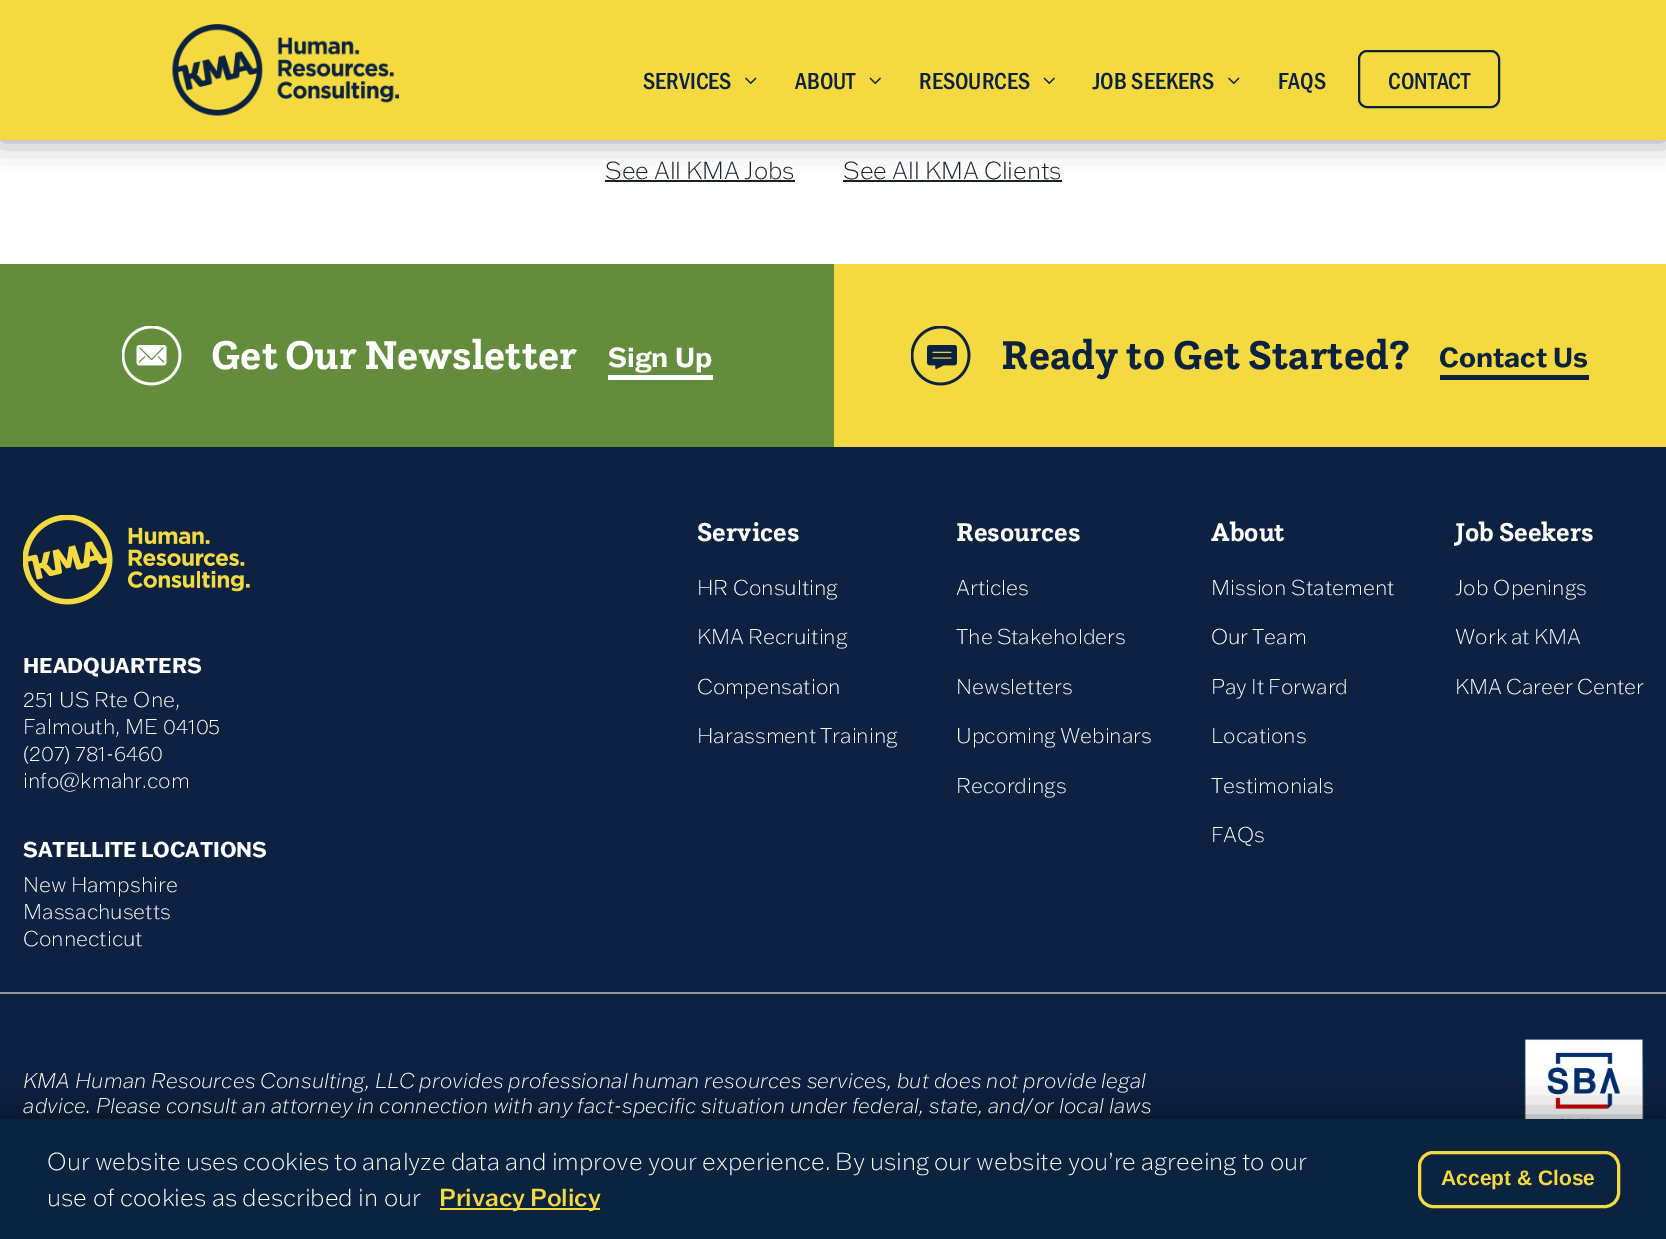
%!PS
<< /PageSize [1666 1239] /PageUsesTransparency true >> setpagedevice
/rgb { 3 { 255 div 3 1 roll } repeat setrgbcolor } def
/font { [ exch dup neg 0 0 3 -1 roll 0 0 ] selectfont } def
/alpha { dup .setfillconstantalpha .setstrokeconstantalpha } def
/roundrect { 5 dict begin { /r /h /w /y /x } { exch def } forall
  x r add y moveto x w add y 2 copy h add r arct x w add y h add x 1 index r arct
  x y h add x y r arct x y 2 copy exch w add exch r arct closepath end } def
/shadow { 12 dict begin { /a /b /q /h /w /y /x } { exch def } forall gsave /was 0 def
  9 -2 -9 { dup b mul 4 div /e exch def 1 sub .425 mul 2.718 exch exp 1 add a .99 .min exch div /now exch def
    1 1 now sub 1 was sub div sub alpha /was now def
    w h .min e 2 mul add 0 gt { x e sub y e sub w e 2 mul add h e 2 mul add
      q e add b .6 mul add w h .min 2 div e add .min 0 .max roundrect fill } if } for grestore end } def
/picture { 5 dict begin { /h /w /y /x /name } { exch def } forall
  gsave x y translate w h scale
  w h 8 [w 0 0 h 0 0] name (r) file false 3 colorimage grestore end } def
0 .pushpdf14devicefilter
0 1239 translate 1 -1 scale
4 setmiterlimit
255 255 255 rgb
0 0 1666 1239 rectfill
26 32 44 rgb
605 180 190 2 rectfill
843 180 219 2 rectfill
0 0 0 rgb
0 0 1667 140 0 15 0.4 shadow
244 218 64 rgb
0 0 1666 140 rectfill
(img/1.rgb) 172 24 227 92 picture
(img/2.rgb) 745 77 12 7 picture
(img/3.rgb) 869 77 12 7 picture
(img/3.rgb) 1043 77 12 7 picture
(img/2.rgb) 1228 77 12 7 picture
12 35 64 rgb
2 setlinewidth
1359 51 140 56 8 roundrect stroke
12 34 64 rgb
0 447 1666 672 rectfill
(img/7.rgb) 1524 1038 120 81 picture
0 0 0 rgb
0 1119 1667 120 0 19 0.5 shadow
10 35 63 rgb
0 1119 1666 120 rectfill
245 218 63 rgb
440 1208 160 2 rectfill
244 217 64 rgb
3 setlinewidth
1419.5 1152.5 199 54 13.5 roundrect stroke
99 141 61 rgb
0 264 834 183 rectfill
(img/4.rgb) 122 326 60 60 picture
255 255 255 rgb
608 375 105 5 rectfill
244 218 64 rgb
834 264 832 183 rectfill
(img/5.rgb) 911 326 60 60 picture
12 35 64 rgb
1440 375 149 5 rectfill
(img/6.rgb) 23 515 227 90 picture
151 152 154 rgb
0 992 1666 2 rectfill
/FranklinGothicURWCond-Medium 24 font
12 35 64 rgb
[
  [(SERVICES) 643 89]
  [(ABOUT) 795 89]
  [(RESOURCES) 919 89]
  [(JOB SEEKERS) 1093 89]
  [(FAQS) 1278 89]
  [(CONTACT) 1388 89]
] { aload pop moveto show } forall
/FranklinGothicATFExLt-Light 24 font
255 255 255 rgb
47 1170 moveto -0.6 0 32 (Our website uses cookies to analyze data and improve your experience. By using our website you’re agreeing to our) widthshow
47 1206 moveto -0.25 0 32 (use of cookies as described in our) widthshow
/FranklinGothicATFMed-Medium 24 font
244 217 64 rgb
439 1206 moveto -1 0 32 (Privacy Policy) widthshow
/LiberationSans-Bold 21 font
1441 1185 moveto (Accept & Close) show
/FranklinGothicATFExLt-Light 24 font
26 32 44 rgb
605 179 moveto -1 0 32 (See All KMA Jobs) widthshow
843 179 moveto -0.5 0 32 (See All KMA Clients) widthshow
/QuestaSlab-Bold 42 font
255 255 255 rgb
211 369 moveto -2 0 32 (Get Our Newsletter) widthshow
/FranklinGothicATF-Bold 27 font
608 367 moveto (Sign Up) show
/QuestaSlab-Bold 42 font
12 35 64 rgb
1001 369 moveto -0.5 0 32 (Ready to Get Started?) widthshow
/FranklinGothicATF-Bold 27 font
1439 367 moveto (Contact Us) show
/FranklinGothicATF-Bold 21 font
255 255 255 rgb
23 673 moveto (HEADQUARTERS) show
/FranklinGothicATFExLt-Light 21 font
[
  [(251 US Rte One,) 23 707]
  [(Falmouth, ME 04105) 23 734]
  [(\(207\) 781-6460) 23 761]
  [(info@kmahr.com) 23 788]
] { aload pop moveto show } forall
/FranklinGothicATF-Bold 21 font
23 857 moveto -1 0 32 (SATELLITE LOCATIONS) widthshow
/FranklinGothicATFExLt-Light 21 font
23 892 moveto -1 0 32 (New Hampshire) widthshow
23 919 moveto (Massachusetts) show
23 946 moveto (Connecticut) show
/QuestaSlab-Bold 27 font
697 541 moveto (Services) show
/FranklinGothicATFExLt-Light 21 font
697 595 moveto (HR Consulting) show
697 644 moveto -1 0 32 (KMA Recruiting) widthshow
697 694 moveto (Compensation) show
697 743 moveto -1 0 32 (Harassment Training) widthshow
/QuestaSlab-Bold 27 font
956 541 moveto (Resources) show
/FranklinGothicATFExLt-Light 21 font
956 595 moveto (Articles) show
956 644 moveto -1 0 32 (The Stakeholders) widthshow
956 694 moveto (Newsletters) show
956 743 moveto -1 0 32 (Upcoming Webinars) widthshow
956 793 moveto (Recordings) show
/QuestaSlab-Bold 27 font
1211 541 moveto (About) show
/FranklinGothicATFExLt-Light 21 font
1211 595 moveto (Mission Statement) show
1211 644 moveto -1 0 32 (Our Team) widthshow
1211 694 moveto -1 0 32 (Pay It Forward) widthshow
[
  [(Locations) 1211 743]
  [(Testimonials) 1211 793]
  [(FAQs) 1211 842]
] { aload pop moveto show } forall
/QuestaSlab-Bold 27 font
1455 541 moveto -1 0 32 (Job Seekers) widthshow
/FranklinGothicATFExLt-Light 21 font
1455 595 moveto (Job Openings) show
1455 644 moveto -1 0 32 (Work at KMA) widthshow
1455 694 moveto -1 0 32 (KMA Career Center) widthshow
/FranklinGothicATFExLt-LightItalic 21 font
23 1088 moveto -0.4 0 32 (KMA Human Resources Consulting, LLC provides professional human resources services, but does not provide legal) widthshow
23 1113 moveto -0.3 0 32 (advice. Please consult an attorney in connection with any fact-specific situation under federal, state, and/or local laws) widthshow
.poppdf14devicefilter showpage
